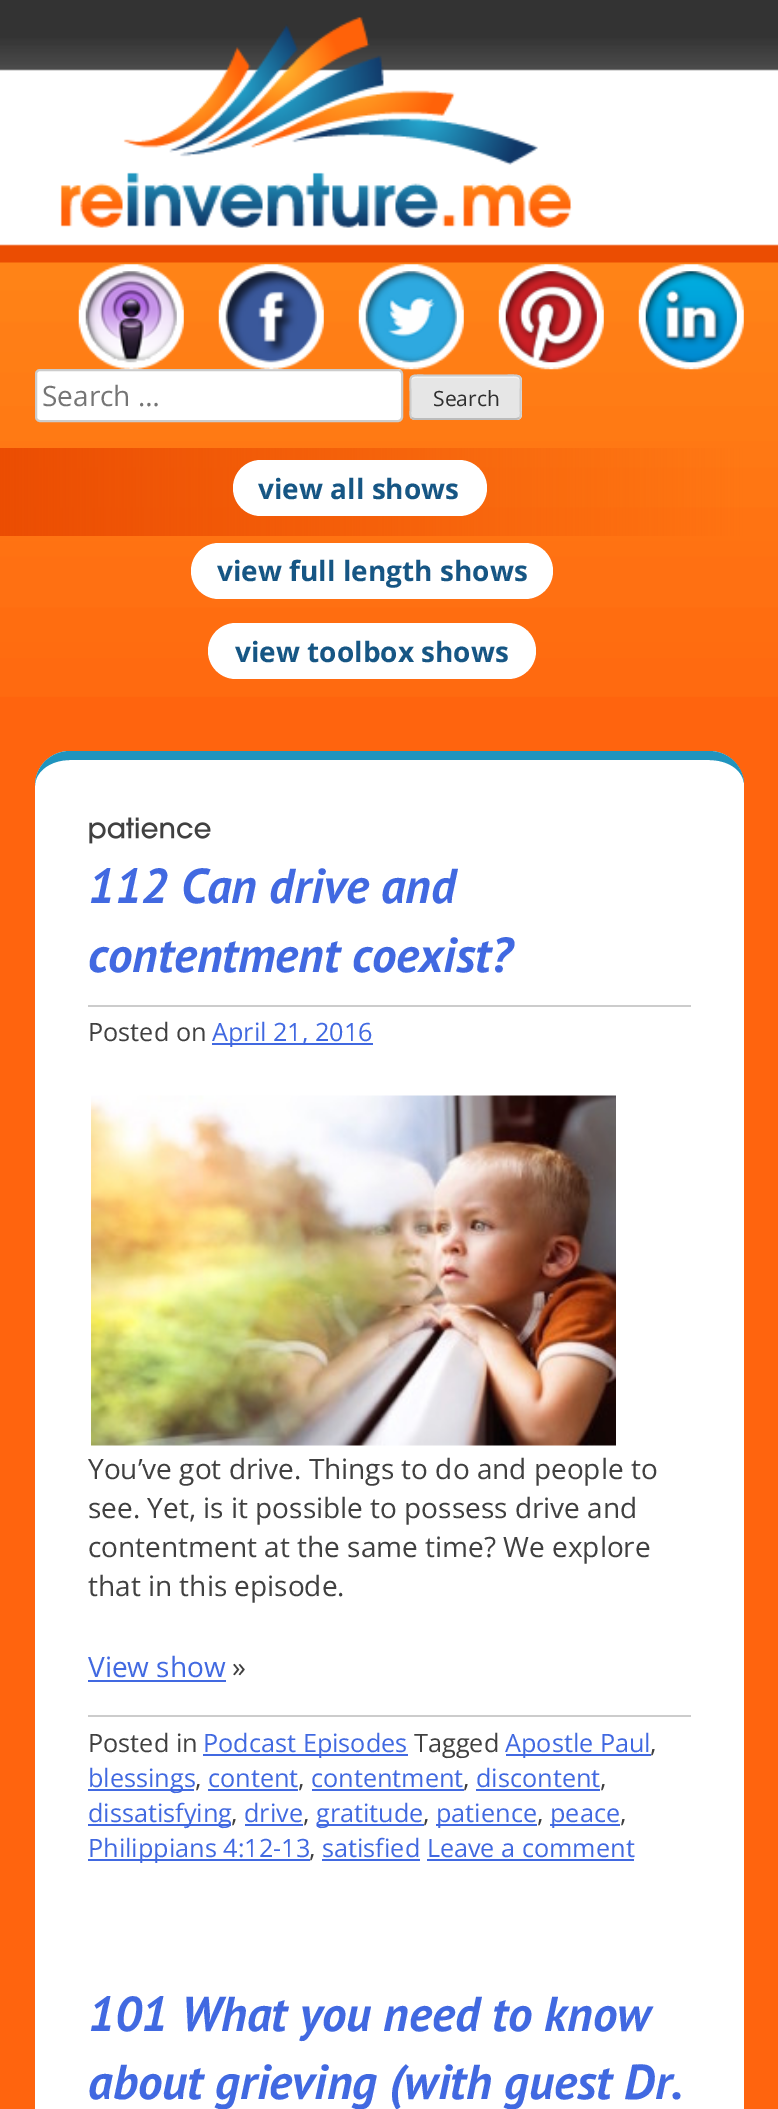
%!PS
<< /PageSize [778 2109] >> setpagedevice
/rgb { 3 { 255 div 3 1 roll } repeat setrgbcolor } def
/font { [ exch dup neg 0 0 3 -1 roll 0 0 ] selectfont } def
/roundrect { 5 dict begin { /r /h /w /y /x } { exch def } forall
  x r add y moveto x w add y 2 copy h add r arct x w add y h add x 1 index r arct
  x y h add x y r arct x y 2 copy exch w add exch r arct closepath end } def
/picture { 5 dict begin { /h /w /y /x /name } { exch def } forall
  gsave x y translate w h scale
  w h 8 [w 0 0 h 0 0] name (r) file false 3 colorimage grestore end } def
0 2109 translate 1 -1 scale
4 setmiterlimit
255 100 14 rgb
0 0 778 2109 rectfill
(img/1.rgb) 0 0 778 697 picture
(img/2.rgb) 60 17 512 211 picture
255 255 255 rgb
36 370 366 51 4 roundrect gsave fill grestore
204 204 204 rgb
2 setlinewidth
stroke
(img/3.rgb) 78 264 106 106 picture
(img/4.rgb) 85 271 92 92 picture
(img/5.rgb) 218 264 106 106 picture
(img/6.rgb) 225 271 92 92 picture
(img/7.rgb) 358 264 106 106 picture
(img/8.rgb) 365 271 92 92 picture
(img/9.rgb) 498 264 106 106 picture
(img/10.rgb) 505 271 92 92 picture
(img/9.rgb) 638 264 106 106 picture
(img/11.rgb) 645 271 92 92 picture
230 230 230 rgb
410 375 112 45 5 roundrect fill
243 243 243 rgb
415 378 moveto 516 378 lineto 518 378 520 380 520 382 curveto 520 380 lineto 520 378 518 376 516 376 curveto 415 376 lineto 413 376 411 378 411 380 curveto 411 382 lineto 411 380 413 378 415 378 curveto closepath fill
187 187 187 rgb
1.8 setlinewidth
519.5 418 moveto 516.5 419 lineto 414.5 419 lineto 411.5 418 lineto stroke
204 204 204 rgb
411.5 418 moveto 409.5 415.5 410.5 411.5 410.5 409 curveto 410.5 397 lineto 410.5 372 406 375.5 431.5 375.5 curveto 499.5 375.5 lineto 525 375.5 520.5 372 520.5 397 curveto 520.5 409 lineto 520.5 411.5 521.5 415.5 519.5 418 curveto stroke
255 255 255 rgb
233 460 254 56 28 roundrect fill
191 543 362 56 28 roundrect fill
208 623 328 56 28 roundrect fill
35 751 709 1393 35 roundrect fill
32 148 190 rgb
70 751 moveto 709 751 lineto 727 751 742 764 744 782 curveto 744 783 lineto 742 769 727 760 709 760 curveto 70 760 lineto 51 760 35 771 35 786 curveto 35 766 51 751 70 751 curveto closepath fill
(img/12.rgb) 89 817 122 27 picture
204 204 204 rgb
88 1005 603 2 rectfill
65 105 225 rgb
212 1043 161 2 rectfill
(img/13.rgb) 91 1095 525 351 picture
[
  [88 1680 138 2 65 105 225]
  [88 1715 603 2 204 204 204]
  [203 1754 205 2 65 105 225]
  [506 1754 145 2 65 105 225]
  [88 1789 106 2 65 105 225]
  [208 1789 90 2 65 105 225]
  [312 1789 152 2 65 105 225]
  [476 1789 124 2 65 105 225]
  [88 1824 143 2 65 105 225]
  [245 1824 58 2 65 105 225]
  [317 1824 107 2 65 105 225]
  [436 1824 101 2 65 105 225]
  [550 1824 70 2 65 105 225]
  [88 1859 222 2 65 105 225]
  [322 1859 98 2 65 105 225]
  [427 1859 207 2 65 105 225]
] { aload pop rgb rectfill } forall
/OpenSans-Regular 28 font
117 117 117 rgb
42 406 moveto (Search …) show
/OpenSans-Regular 21 font
46 46 46 rgb
433 406 moveto (Search) show
/OpenSans-Bold 28 font
22 86 132 rgb
[
  [(view all shows) 258 499]
  [(view full length shows) 217 581]
  [(view toolbox shows) 235 662]
] { aload pop moveto show } forall
/PTSans-BoldItalic 49 font
65 105 225 rgb
88 903 moveto (112 Can drive and) show
88 972 moveto (contentment coexist?) show
/OpenSans-Regular 25.25 font
64 64 64 rgb
88 1041 moveto (Posted on) show
65 105 225 rgb
212 1041 moveto (April 21, 2016) show
/OpenSans-Regular 28 font
64 64 64 rgb
[
  [(You’ve got drive. Things to do and people to) 88 1479]
  [(see. Yet, is it possible to possess drive and) 88 1518]
  [(contentment at the same time? We explore) 88 1557]
  [(that in this episode.) 88 1596]
] { aload pop moveto show } forall
65 105 225 rgb
88 1677 moveto (View show) show
64 64 64 rgb
232 1677 moveto (») show
/OpenSans-Regular 25.25 font
88 1752 moveto (Posted in) show
65 105 225 rgb
203 1752 moveto (Podcast Episodes) show
64 64 64 rgb
414 1752 moveto (Tagged) show
65 105 225 rgb
505 1752 moveto (Apostle Paul) show
64 64 64 rgb
650 1752 moveto (,) show
65 105 225 rgb
88 1787 moveto (blessings) show
64 64 64 rgb
195 1787 moveto (,) show
65 105 225 rgb
208 1787 moveto (content) show
64 64 64 rgb
298 1787 moveto (,) show
65 105 225 rgb
311 1787 moveto (contentment) show
64 64 64 rgb
463 1787 moveto (,) show
65 105 225 rgb
476 1787 moveto (discontent) show
64 64 64 rgb
600 1787 moveto (,) show
65 105 225 rgb
88 1822 moveto (dissatisfying) show
64 64 64 rgb
231 1822 moveto (,) show
65 105 225 rgb
244 1822 moveto (drive) show
64 64 64 rgb
303 1822 moveto (,) show
65 105 225 rgb
316 1822 moveto (gratitude) show
64 64 64 rgb
423 1822 moveto (,) show
65 105 225 rgb
436 1822 moveto (patience) show
64 64 64 rgb
537 1822 moveto (,) show
65 105 225 rgb
550 1822 moveto (peace) show
64 64 64 rgb
620 1822 moveto (,) show
65 105 225 rgb
88 1857 moveto (Philippians 4:12-13) show
64 64 64 rgb
309 1857 moveto (,) show
65 105 225 rgb
322 1857 moveto (satisfied Leave a comment) show
/PTSans-BoldItalic 49 font
88 2031 moveto (101 What you need to know) show
88 2099 moveto (about grieving \(with guest Dr.) show
showpage
